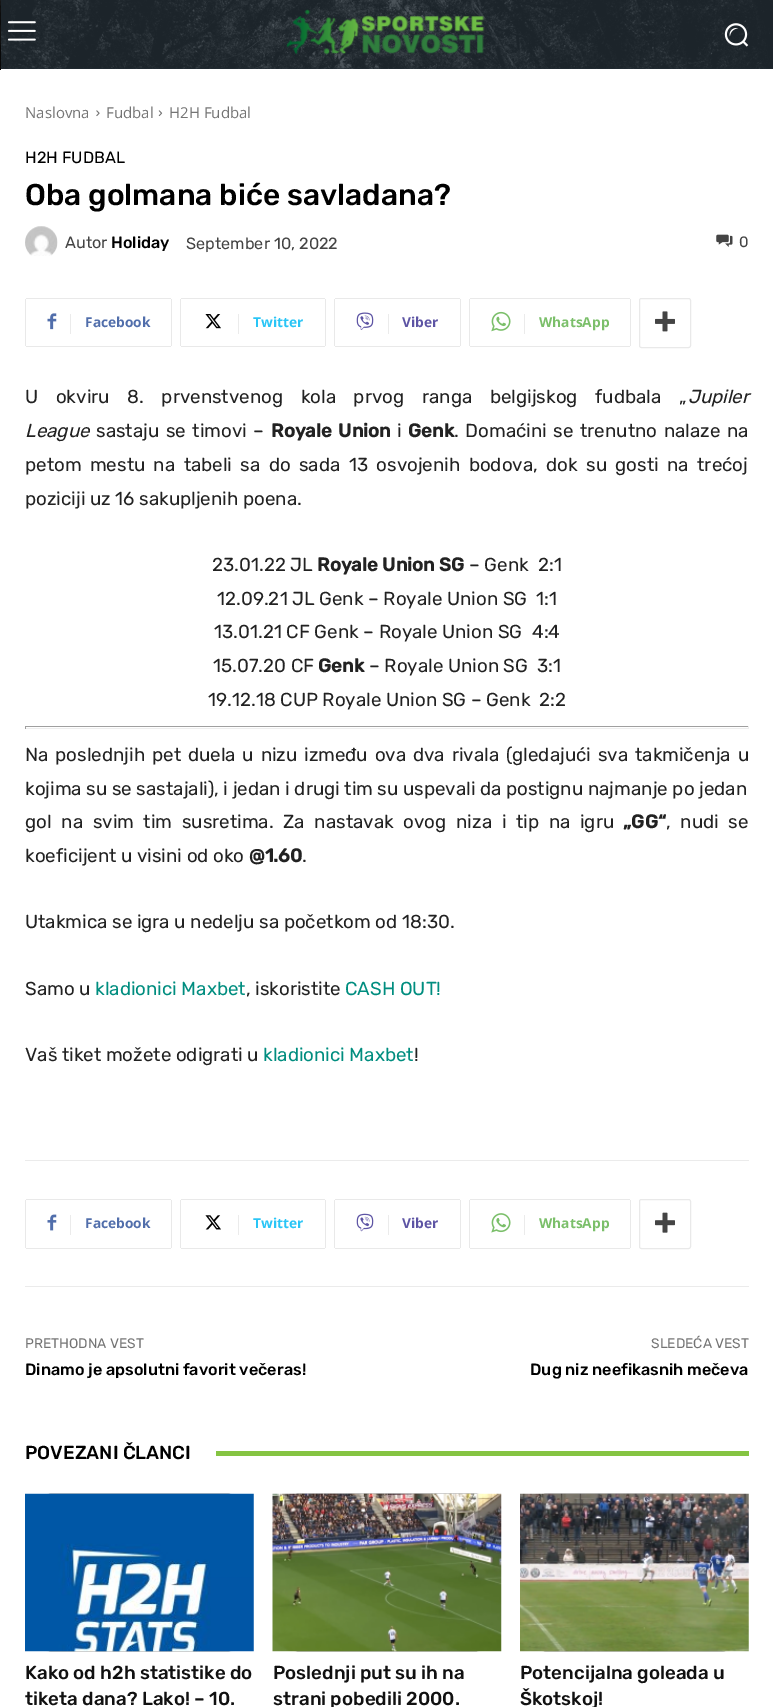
%!PS
<< /PageSize [773 1707] /PageUsesTransparency true >> setpagedevice
/rgb { 3 { 255 div 3 1 roll } repeat setrgbcolor } def
/font { [ exch dup neg 0 0 3 -1 roll 0 0 ] selectfont } def
/alpha { dup .setfillconstantalpha .setstrokeconstantalpha } def
/roundrect { 5 dict begin { /r /h /w /y /x } { exch def } forall
  x r add y moveto x w add y 2 copy h add r arct x w add y h add x 1 index r arct
  x y h add x y r arct x y 2 copy exch w add exch r arct closepath end } def
/shadow { 12 dict begin { /a /b /q /h /w /y /x } { exch def } forall gsave /was 0 def
  9 -2 -9 { dup b mul 4 div /e exch def 1 sub .425 mul 2.718 exch exp 1 add a .99 .min exch div /now exch def
    1 1 now sub 1 was sub div sub alpha /was now def
    w h .min e 2 mul add 0 gt { x e sub y e sub w e 2 mul add h e 2 mul add
      q e add b .6 mul add w h .min 2 div e add .min 0 .max roundrect fill } if } for grestore end } def
/picture { 5 dict begin { /h /w /y /x /name } { exch def } forall
  gsave x y translate w h scale
  w h 8 [w 0 0 h 0 0] name (r) file false 3 colorimage grestore end } def
0 .pushpdf14devicefilter
0 1707 translate 1 -1 scale
4 setmiterlimit
255 255 255 rgb
0 0 773 1707 rectfill
(img/1.rgb) 0 0 1 70 picture
0 0 0 rgb
-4 66 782 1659 0 6 0.12 shadow
35 45 53 rgb
1 0 772 69 rectfill
(img/2.rgb) 1 0 772 69 picture
(img/3.rgb) 7 21 29 20 picture
(img/4.rgb) 286 9 199 46 picture
(img/5.rgb) 724 23 25 24 picture
255 255 255 rgb
1 69 772 1 rectfill
0 70 773 1637 rectfill
(img/6.rgb) 96 110 4 7 picture
(img/7.rgb) 158 110 5 7 picture
(img/8.rgb) 25 226 33 30 picture
(img/9.rgb) 716 234 17 13 picture
233 233 233 rgb
25 299 1 47 rectfill
(img/10.rgb) 47 313 10 17 picture
[
  [26 298 145 1 233 233 233]
  [171 299 1 47 233 233 233]
  [26 346 145 1 233 233 233]
  [70 314 1 20 235 235 235]
  [180 299 1 47 233 233 233]
] { aload pop rgb rectfill } forall
(img/11.rgb) 205 314 16 15 picture
[
  [181 298 144 1 233 233 233]
  [325 299 1 47 233 233 233]
  [181 346 144 1 233 233 233]
  [238 314 1 20 235 235 235]
  [334 299 1 47 233 233 233]
] { aload pop rgb rectfill } forall
(img/12.rgb) 356 312 18 18 picture
[
  [335 298 125 1 233 233 233]
  [460 299 1 47 233 233 233]
  [335 346 125 1 233 233 233]
  [388 314 1 20 235 235 235]
  [469 299 1 47 233 233 233]
] { aload pop rgb rectfill } forall
(img/13.rgb) 491 311 20 21 picture
[
  [470 298 160 1 233 233 233]
  [630 299 1 47 233 233 233]
  [470 346 160 1 233 233 233]
  [524 314 1 20 235 235 235]
] { aload pop rgb rectfill } forall
233 233 233 rgb
639.5 298.5 51 49 2 roundrect stroke
(img/14.rgb) 655 311 20 21 picture
[
  [25 726 724 1 159 159 159]
  [748 726 1 3 238 238 238]
  [25 728 724 1 238 238 238]
  [25 726 1 3 159 159 159]
  [25 1160 724 1 235 235 235]
  [25 1200 1 48 233 233 233]
] { aload pop rgb rectfill } forall
(img/15.rgb) 47 1214 10 17 picture
[
  [26 1199 145 1 233 233 233]
  [171 1200 1 48 233 233 233]
  [26 1248 145 1 233 233 233]
  [70 1215 1 20 235 235 235]
  [180 1200 1 48 233 233 233]
] { aload pop rgb rectfill } forall
(img/16.rgb) 205 1215 16 15 picture
[
  [181 1199 144 1 233 233 233]
  [325 1200 1 48 233 233 233]
  [181 1248 144 1 233 233 233]
  [238 1215 1 20 235 235 235]
  [334 1200 1 48 233 233 233]
] { aload pop rgb rectfill } forall
(img/17.rgb) 356 1213 18 19 picture
[
  [335 1199 125 1 233 233 233]
  [460 1200 1 48 233 233 233]
  [335 1248 125 1 233 233 233]
  [388 1215 1 20 235 235 235]
  [469 1200 1 48 233 233 233]
] { aload pop rgb rectfill } forall
(img/18.rgb) 491 1213 20 20 picture
[
  [470 1199 160 1 233 233 233]
  [630 1200 1 48 233 233 233]
  [470 1248 160 1 233 233 233]
  [524 1215 1 20 235 235 235]
] { aload pop rgb rectfill } forall
233 233 233 rgb
639.5 1199.5 51 49 2 roundrect stroke
(img/19.rgb) 655 1212 20 21 picture
235 235 235 rgb
25 1286 724 1 rectfill
133 196 66 rgb
216 1451 533 5 rectfill
(img/21.rgb) 47 1493 185 159 picture
(img/20.rgb) 25 1493 229 159 picture
(img/23.rgb) 295 1493 184 159 picture
(img/22.rgb) 272 1493 230 159 picture
(img/21.rgb) 542 1493 185 159 picture
(img/24.rgb) 520 1493 229 159 picture
/OpenSans-Regular 15 font
116 116 116 rgb
[
  [(Naslovna) 25 118]
  [(Fudbal) 106 118]
  [(H2H Fudbal) 169 118]
] { aload pop moveto show } forall
/Rubik-Regular 16.25 font
0 0 0 rgb
25 163 moveto (H2H FUDBAL) show
/Rubik-Medium 30 font
25 205 moveto (Oba golmana biće savladana?) show
/Rubik-Regular 16.25 font
68 68 68 rgb
65 248 moveto (Autor) show
/Rubik-Medium 16.25 font
0 0 0 rgb
111 248 moveto (Holiday) show
/Rubik-Regular 16.25 font
68 68 68 rgb
186 249 moveto (September 10, 2022) show
/Rubik-Regular 15 font
739 247 moveto (0) show
/OpenSans-Bold 13.75 font
81 110 171 rgb
85 327 moveto (Facebook) show
41 197 246 rgb
253 327 moveto (Twitter) show
93 84 164 rgb
402 327 moveto (Viber) show
123 191 106 rgb
539 327 moveto (WhatsApp) show
/Rubik-Regular 18.75 font
34 34 34 rgb
25 403 moveto 13 0 32 (U okviru 8. prvenstvenog kola prvog ranga belgijskog fudbala „) widthshow
/Rubik-Italic 18.75 font
688 403 moveto (Jupiler) show
25 437 moveto (League) show
/Rubik-Regular 18.75 font
96 437 moveto 2 0 32 (sastaju se timovi –) widthshow
/Rubik-Bold 18.75 font
271 437 moveto 2 0 32 (Royale Union) widthshow
/Rubik-Regular 18.75 font
397 437 moveto (i) show
/Rubik-Bold 18.75 font
408 437 moveto (Genk) show
/Rubik-Regular 18.75 font
454 437 moveto 2 0 32 (. Domaćini se trenutno nalaze na) widthshow
25 471 moveto 3.75 0 32 (petom mestu na tabeli sa do sada 13 osvojenih bodova, dok su gosti na trećoj) widthshow
25 505 moveto (poziciji uz 16 sakupljenih poena.) show
212 571 moveto (23.01.22 JL) show
/Rubik-Bold 18.75 font
317 571 moveto (Royale Union SG) show
/Rubik-Regular 18.75 font
[
  [(– Genk) 469 571]
  [(2:1) 538 571]
  [(12.09.21 JL Genk – Royale Union SG) 217 605]
  [(1:1) 536 605]
  [(13.01.21 CF Genk – Royale Union SG) 214 638]
  [(4:4) 532 638]
  [(15.07.20 CF) 213 672]
] { aload pop moveto show } forall
/Rubik-Bold 18.75 font
318 672 moveto (Genk) show
/Rubik-Regular 18.75 font
[
  [(– Royale Union SG) 369 672]
  [(3:1) 537 672]
  [(19.12.18 CUP Royale Union SG – Genk) 208 706]
  [(2:2) 539 706]
] { aload pop moveto show } forall
25 761 moveto 2.25 0 32 (Na poslednjih pet duela u nizu između ova dva rivala \(gledajući sva takmičenja u) widthshow
25 795 moveto (kojima su se sastajali\), i jedan i drugi tim su uspevali da postignu najmanje po jedan) show
25 828 moveto 5.1 0 32 (gol na svim tim susretima. Za nastavak ovog niza i tip na igru) widthshow
/Rubik-Bold 18.75 font
623 828 moveto („GG“) show
/Rubik-Regular 18.75 font
666 828 moveto 5.1 0 32 (, nudi se) widthshow
25 862 moveto (koeficijent u visini od oko) show
/Rubik-Bold 18.75 font
249 862 moveto (@1.60) show
/Rubik-Regular 18.75 font
[
  [(.) 302 862]
  [(Utakmica se igra u nedelju sa početkom od 18:30.) 25 928]
  [(Samo u) 25 995]
] { aload pop moveto show } forall
0 141 127 rgb
95 995 moveto (kladionici Maxbet) show
34 34 34 rgb
246 995 moveto (, iskoristite) show
0 141 127 rgb
345 995 moveto (CASH OUT!) show
34 34 34 rgb
25 1061 moveto (Vaš tiket možete odigrati u) show
0 141 127 rgb
263 1061 moveto (kladionici Maxbet) show
34 34 34 rgb
414 1061 moveto (!) show
/OpenSans-Bold 13.75 font
81 110 171 rgb
85 1228 moveto (Facebook) show
41 197 246 rgb
253 1228 moveto (Twitter) show
93 84 164 rgb
402 1228 moveto (Viber) show
123 191 106 rgb
539 1228 moveto (WhatsApp) show
/Rubik-Regular 13.75 font
116 116 116 rgb
25 1348 moveto (PRETHODNA VEST) show
/Rubik-Medium 16.25 font
0 0 0 rgb
25 1375 moveto (Dinamo je apsolutni favorit večeras!) show
/Rubik-Regular 13.75 font
116 116 116 rgb
651 1348 moveto (SLEDEĆA VEST) show
/Rubik-Medium 16.25 font
0 0 0 rgb
530 1375 moveto (Dug niz neefikasnih mečeva) show
/Rubik-Medium 18.75 font
25 1459 moveto (POVEZANI ČLANCI) show
17 17 17 rgb
[
  [(Kako od h2h statistike do) 25 1679]
  [(tiketa dana? Lako! – 10.) 25 1705]
  [(Poslednji put su ih na) 273 1679]
  [(strani pobedili 2000.) 273 1705]
  [(Potencijalna goleada u) 520 1679]
  [(Škotskoj!) 520 1705]
] { aload pop moveto show } forall
.poppdf14devicefilter showpage
